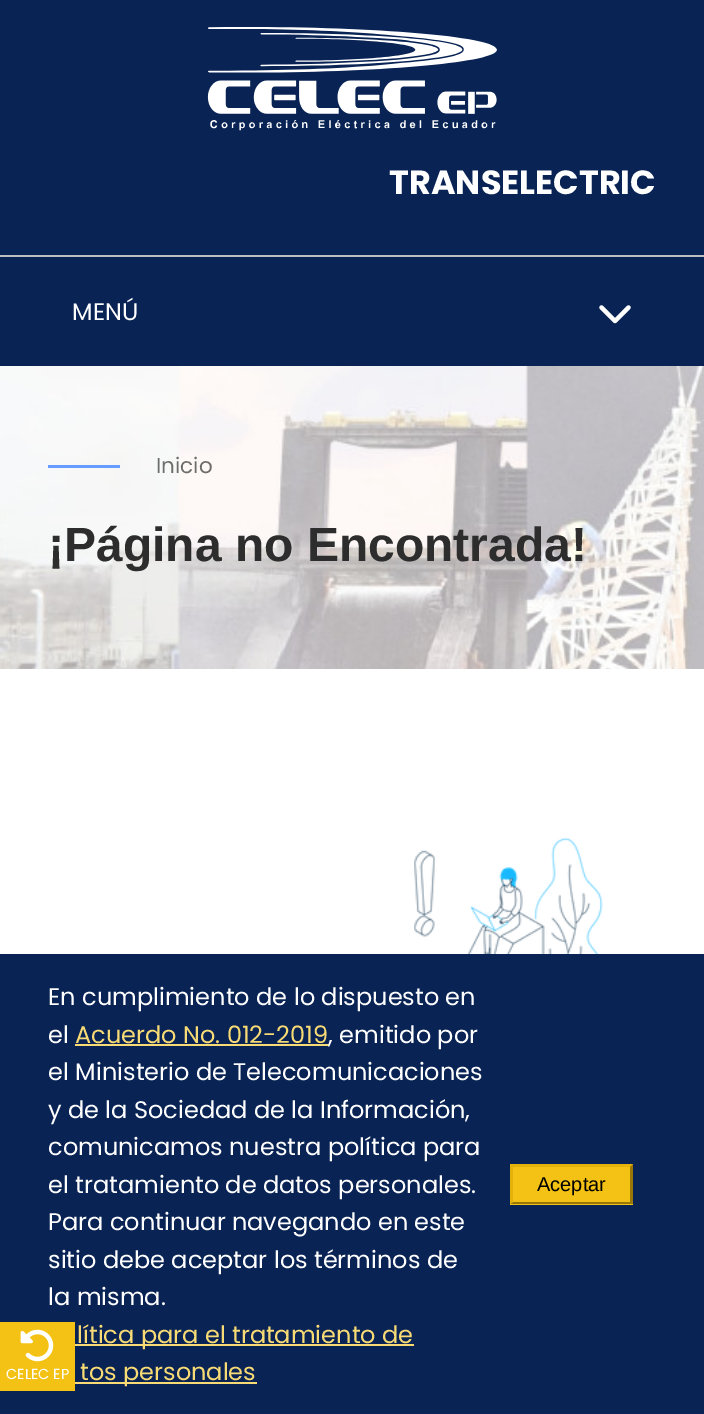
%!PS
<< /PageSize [704 1414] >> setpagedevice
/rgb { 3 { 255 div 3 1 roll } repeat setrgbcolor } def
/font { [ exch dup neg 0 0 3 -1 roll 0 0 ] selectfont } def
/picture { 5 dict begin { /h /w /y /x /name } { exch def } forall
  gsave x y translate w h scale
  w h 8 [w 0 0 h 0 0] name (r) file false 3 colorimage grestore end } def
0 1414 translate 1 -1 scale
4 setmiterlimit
255 255 255 rgb
0 0 704 1414 rectfill
8 35 84 rgb
0 0 704 366 rectfill
190 190 190 rgb
0 255 704 2 rectfill
(img/1.rgb) 207 27 290 104 picture
(img/2.rgb) 599 305 32 19 picture
(img/3.rgb) 0 366 704 303 picture
102 156 255 rgb
48 465 72 3 rectfill
(img/4.rgb) 414 837 189 117 picture
8 35 84 rgb
0 954 704 460 rectfill
244 194 20 rgb
0 1322 75 69 rectfill
(img/5.rgb) 20 1329 34 33 picture
[
  [75 1044 254 2 249 219 117]
  [75 1344 339 2 249 219 117]
  [75 1382 182 2 249 219 117]
  [510 1164 123 41 244 194 20]
] { aload pop rgb rectfill } forall
228 179 11 rgb
510 1164 moveto 633 1164 lineto 630 1167 lineto 513 1167 lineto closepath fill
152 119 7 rgb
633 1164 moveto 633 1204 lineto 630 1202 lineto 630 1167 lineto closepath fill
633 1204 moveto 510 1204 lineto 513 1202 lineto 630 1202 lineto closepath fill
228 179 11 rgb
510 1204 moveto 510 1164 lineto 513 1167 lineto 513 1202 lineto closepath fill
/Poppins-Bold 33.5 font
255 255 255 rgb
389 194 moveto (TRANSELECTRIC) show
/Poppins-Regular 24 font
72 320 moveto (MENÚ) show
/Poppins-Regular 21.5 font
109 109 108 rgb
156 473 moveto (Inicio) show
/LiberationSans-Bold 48 font
45 45 45 rgb
48 561 moveto (¡Página no Encontrada!) show
/Poppins-Regular 14.5 font
255 255 255 rgb
6 1379 moveto (CELEC EP) show
/Poppins-Regular 24 font
48 1005 moveto (En cumplimiento de lo dispuesto en) show
48 1043 moveto (el) show
249 219 117 rgb
75 1043 moveto (Acuerdo No. 012-2019) show
255 255 255 rgb
[
  [(, emitido por) 328 1043]
  [(el Ministerio de Telecomunicaciones) 48 1080]
  [(y de la Sociedad de la Información,) 48 1118]
  [(comunicamos nuestra política para) 48 1155]
  [(el tratamiento de datos personales.) 48 1193]
  [(Para continuar navegando en este) 48 1230]
  [(sitio debe aceptar los términos de) 48 1268]
  [(la misma.) 48 1305]
] { aload pop moveto show } forall
249 219 117 rgb
77 1343 moveto (lítica para el tratamiento de) show
80 1380 moveto (tos personales) show
/LiberationSans-Regular 20 font
0 0 0 rgb
537 1191 moveto (Aceptar) show
showpage
